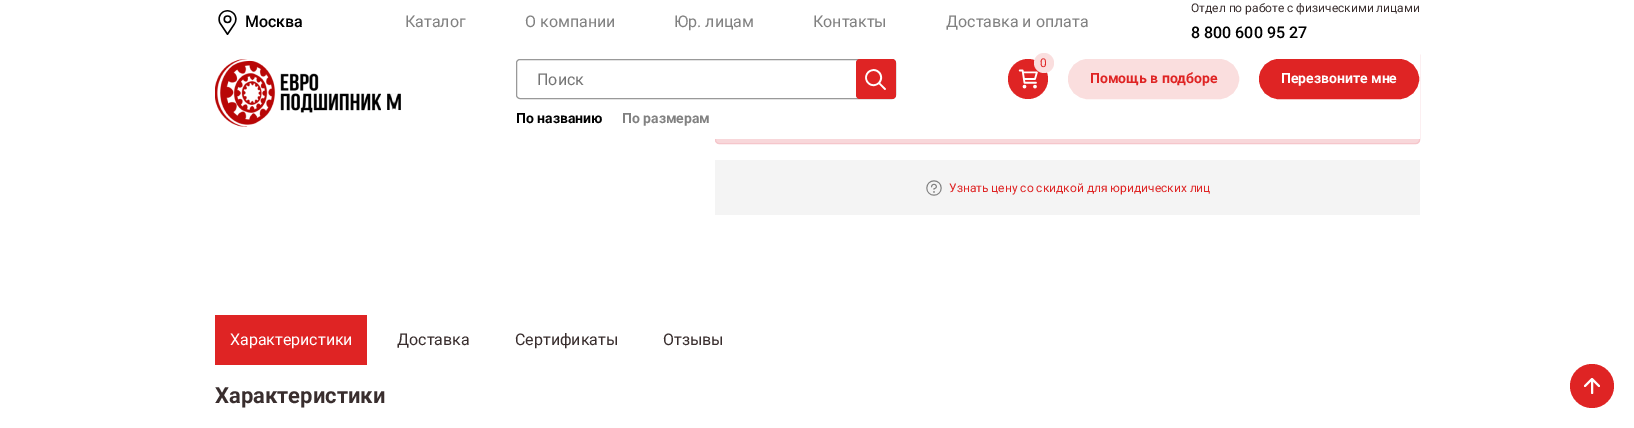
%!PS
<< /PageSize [1634 428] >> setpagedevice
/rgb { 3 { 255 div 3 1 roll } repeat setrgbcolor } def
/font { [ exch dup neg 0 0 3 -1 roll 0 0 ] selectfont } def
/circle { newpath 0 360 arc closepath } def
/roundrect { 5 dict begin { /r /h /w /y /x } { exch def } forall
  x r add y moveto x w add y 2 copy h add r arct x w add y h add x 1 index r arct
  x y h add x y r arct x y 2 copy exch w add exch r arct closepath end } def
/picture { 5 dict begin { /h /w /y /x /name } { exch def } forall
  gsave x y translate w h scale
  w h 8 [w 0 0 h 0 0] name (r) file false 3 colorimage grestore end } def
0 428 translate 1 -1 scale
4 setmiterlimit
255 255 255 rgb
0 0 1634 428 rectfill
248 215 218 rgb
715.5 51.5 704 92 3.5 roundrect gsave fill grestore
245 198 203 rgb
stroke
255 255 255 rgb
715 51 705 88 rectfill
(img/1.rgb) 218 10 19 25 picture
(img/2.rgb) 215 59 186 68 picture
153 153 153 rgb
516.5 59.5 379 39 3.5 roundrect stroke
223 36 36 rgb
856 59 40 40 4 roundrect fill
(img/3.rgb) 865 69 21 21 picture
1028 79 20 circle fill
(img/4.rgb) 1018 69 20 20 picture
250 222 222 rgb
1044 63 10 circle fill
1069 60 169 38 19 roundrect gsave fill grestore
2 setlinewidth
stroke
223 36 36 rgb
1260 60 158 38 19 roundrect gsave fill grestore
stroke
244 244 244 rgb
715 160 705 55 rectfill
(img/5.rgb) 926 180 16 16 picture
223 36 36 rgb
215 315 152 50 rectfill
1592 386 22 circle fill
255 255 255 rgb
1 setlinecap
1 setlinejoin
1592 393 moveto 1592 380 lineto 1585 386 moveto 1592 379 lineto 1599 386 lineto stroke
/Roboto-Medium 16 font
0 0 0 rgb
245 27 moveto (Москва) show
/Roboto-Regular 16 font
129 129 129 rgb
[
  [(Каталог) 405 27]
  [(О компании) 525 27]
  [(Юр. лицам) 674 27]
  [(Контакты) 813 27]
  [(Доставка и оплата) 946 27]
] { aload pop moveto show } forall
/Roboto-Regular 12 font
57 46 46 rgb
1191 12 moveto (Отдел по работе с физическими лицами) show
/Roboto-Medium 16 font
0 0 0 rgb
1191 38 moveto (8 800 600 95 27) show
/Roboto-Regular 16 font
117 117 117 rgb
537 85 moveto (Поиск) show
/Roboto-Bold 14 font
0 0 0 rgb
516 123 moveto (По названию) show
129 129 129 rgb
622 123 moveto (По размерам) show
/Roboto-Regular 12 font
223 36 36 rgb
1040 67 moveto (0) show
/Roboto-Bold 14 font
1090 83 moveto (Помощь в подборе) show
255 255 255 rgb
1281 83 moveto (Перезвоните мне) show
/Roboto-Regular 12 font
223 36 36 rgb
949 192 moveto (Узнать цену со скидкой для юридических лиц) show
/Roboto-Regular 16 font
255 255 255 rgb
230 345 moveto (Характеристики) show
57 46 46 rgb
[
  [(Доставка) 397 345]
  [(Сертификаты) 515 345]
  [(Отзывы) 663 345]
] { aload pop moveto show } forall
/Roboto-Bold 22 font
215 403 moveto (Характеристики) show
showpage
